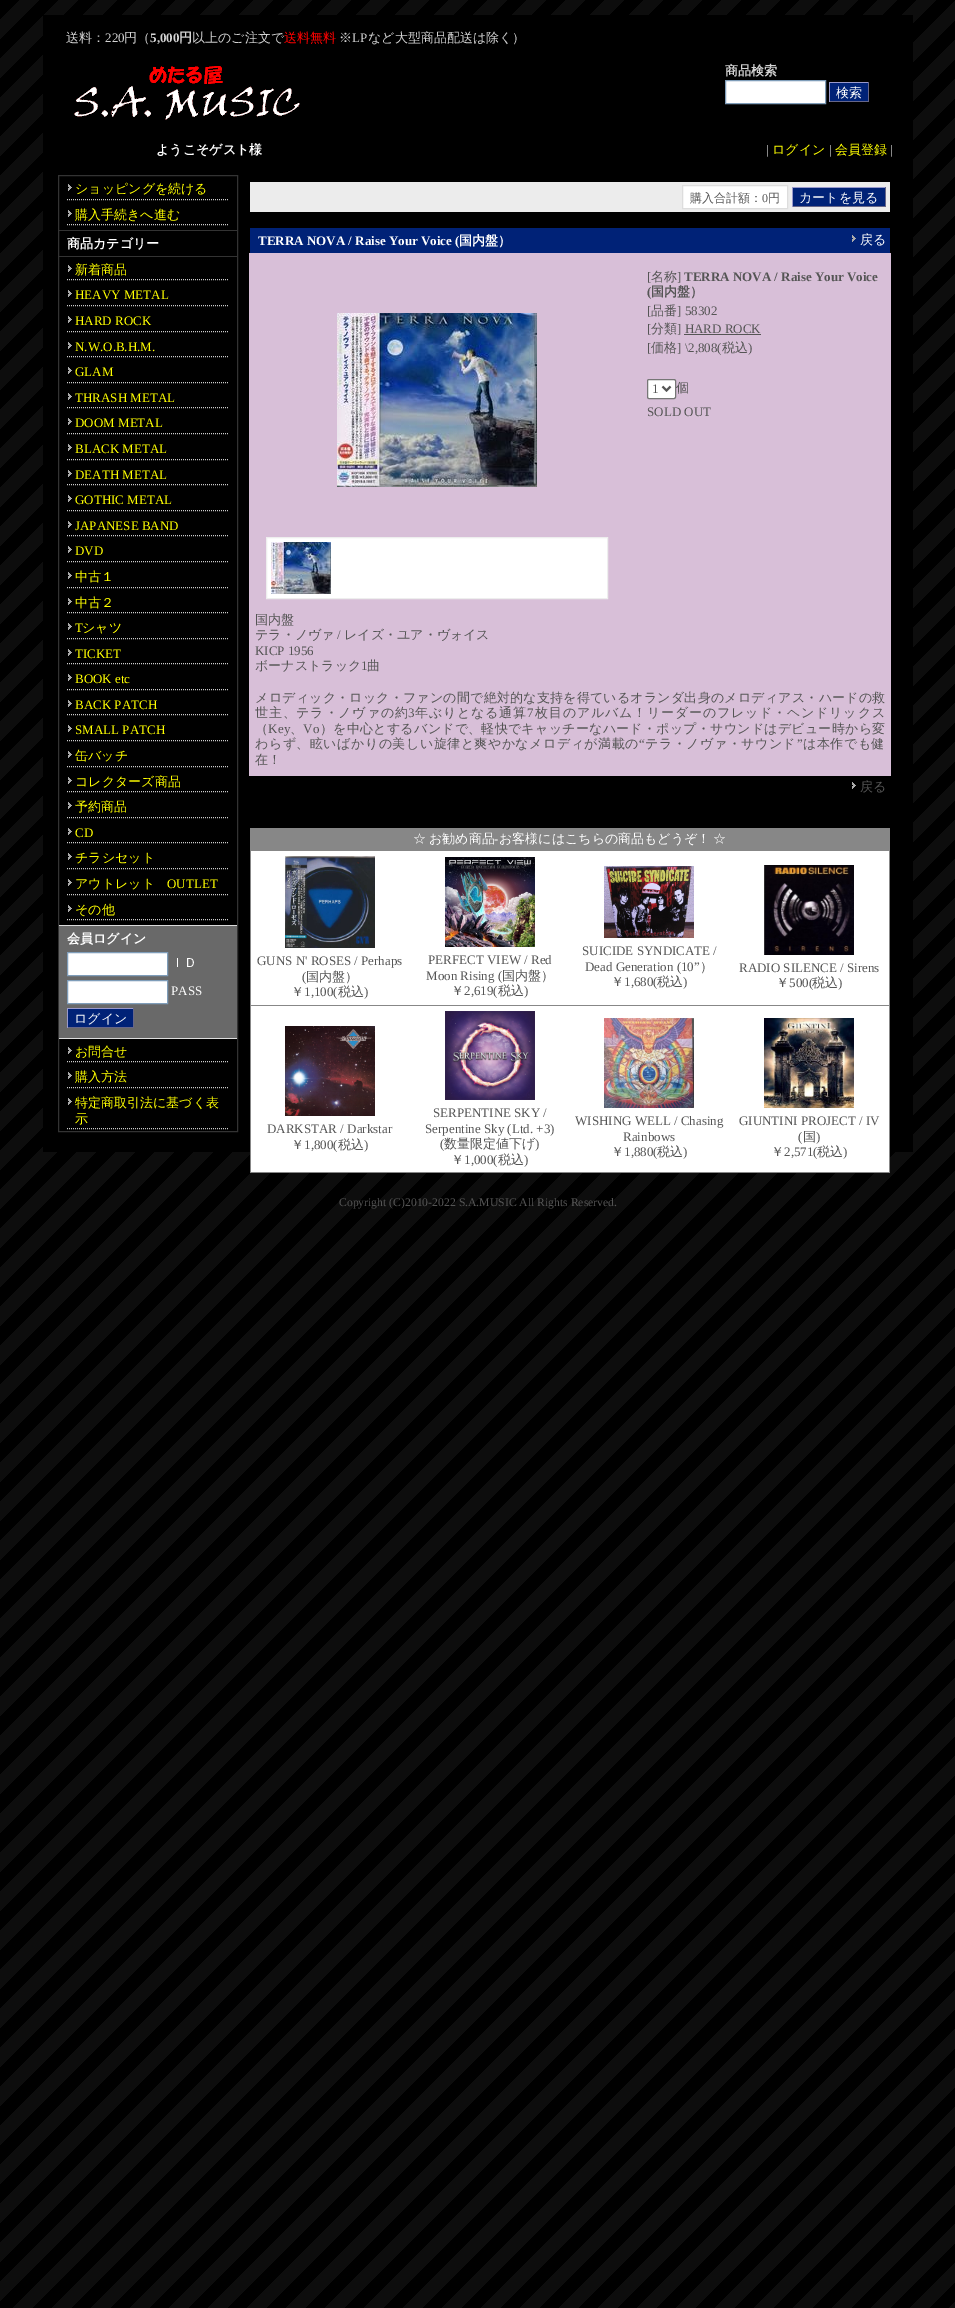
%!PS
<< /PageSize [955 2308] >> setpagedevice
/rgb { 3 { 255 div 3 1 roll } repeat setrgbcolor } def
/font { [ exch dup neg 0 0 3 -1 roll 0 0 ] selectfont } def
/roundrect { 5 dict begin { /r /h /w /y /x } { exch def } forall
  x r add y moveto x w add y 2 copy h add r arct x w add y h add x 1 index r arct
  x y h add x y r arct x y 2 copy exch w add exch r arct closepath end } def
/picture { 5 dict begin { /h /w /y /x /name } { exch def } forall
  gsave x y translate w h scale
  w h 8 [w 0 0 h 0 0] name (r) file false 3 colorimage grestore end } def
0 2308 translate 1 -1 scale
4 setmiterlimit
255 255 255 rgb
0 0 955 2308 rectfill
(img/1.rgb) 0 0 955 2308 picture
0 0 0 rgb
43 15 870 1137 rectfill
(img/2.rgb) 74 66 226 54 picture
255 255 255 rgb
725.5 80.5 moveto 825.5 80.5 lineto 825.5 103.5 lineto 725.5 103.5 lineto closepath gsave fill grestore
127 157 185 rgb
stroke
[
  [830 83 38 18 0 34 119]
  [829 82 40 1 153 153 204]
  [868 82 1 20 102 102 136]
  [829 101 40 1 102 102 136]
  [829 82 1 20 153 153 204]
] { aload pop rgb rectfill } forall
51 51 51 rgb
58.5 175.5 179 956 rectstroke
(img/3.rgb) 68 184 4 7 picture
204 204 204 rgb
[1 1] 0 setdash
67 199.5 moveto 229 199.5 lineto stroke
(img/3.rgb) 68 210 4 7 picture
67 224.5 moveto 229 224.5 lineto stroke
51 51 51 rgb
59 230 178 1 rectfill
59 256 178 1 rectfill
(img/3.rgb) 68 265 4 7 picture
204 204 204 rgb
67 279.5 moveto 229 279.5 lineto stroke
(img/3.rgb) 68 290 4 7 picture
67 305.5 moveto 229 305.5 lineto stroke
(img/3.rgb) 68 316 4 7 picture
67 331.5 moveto 229 331.5 lineto stroke
(img/3.rgb) 68 342 4 7 picture
67 356.5 moveto 229 356.5 lineto stroke
(img/3.rgb) 68 367 4 7 picture
67 382.5 moveto 229 382.5 lineto stroke
(img/3.rgb) 68 393 4 7 picture
67 407.5 moveto 229 407.5 lineto stroke
(img/3.rgb) 68 418 4 7 picture
67 433.5 moveto 229 433.5 lineto stroke
(img/3.rgb) 68 444 4 7 picture
67 459.5 moveto 229 459.5 lineto stroke
(img/3.rgb) 68 470 4 7 picture
67 484.5 moveto 229 484.5 lineto stroke
(img/3.rgb) 68 495 4 7 picture
67 510.5 moveto 229 510.5 lineto stroke
(img/3.rgb) 68 521 4 7 picture
67 535.5 moveto 229 535.5 lineto stroke
(img/3.rgb) 68 546 4 7 picture
67 561.5 moveto 229 561.5 lineto stroke
(img/3.rgb) 68 572 4 7 picture
67 587.5 moveto 229 587.5 lineto stroke
(img/3.rgb) 68 598 4 7 picture
67 612.5 moveto 229 612.5 lineto stroke
(img/3.rgb) 68 623 4 7 picture
67 638.5 moveto 229 638.5 lineto stroke
(img/3.rgb) 68 649 4 7 picture
67 663.5 moveto 229 663.5 lineto stroke
(img/3.rgb) 68 674 4 7 picture
67 689.5 moveto 229 689.5 lineto stroke
(img/3.rgb) 68 700 4 7 picture
67 714.5 moveto 229 714.5 lineto stroke
(img/3.rgb) 68 725 4 7 picture
67 740.5 moveto 229 740.5 lineto stroke
(img/3.rgb) 68 751 4 7 picture
67 766.5 moveto 229 766.5 lineto stroke
(img/3.rgb) 68 777 4 7 picture
67 791.5 moveto 229 791.5 lineto stroke
(img/3.rgb) 68 802 4 7 picture
67 817.5 moveto 229 817.5 lineto stroke
(img/3.rgb) 68 828 4 7 picture
67 842.5 moveto 229 842.5 lineto stroke
(img/3.rgb) 68 853 4 7 picture
67 868.5 moveto 229 868.5 lineto stroke
(img/3.rgb) 68 879 4 7 picture
67 894.5 moveto 229 894.5 lineto stroke
(img/3.rgb) 68 905 4 7 picture
67 919.5 moveto 229 919.5 lineto stroke
[
  [59 926 178 112 105 105 105]
  [59 925 178 1 221 221 221]
  [59 1038 178 1 221 221 221]
] { aload pop rgb rectfill } forall
255 255 255 rgb
67.5 952.5 moveto 167.5 952.5 lineto 167.5 975.5 lineto 67.5 975.5 lineto closepath gsave fill grestore
127 157 185 rgb
[] 0 setdash
stroke
255 255 255 rgb
67.5 980.5 moveto 167.5 980.5 lineto 167.5 1003.5 lineto 67.5 1003.5 lineto closepath gsave fill grestore
127 157 185 rgb
stroke
[
  [68 1009 65 18 0 34 119]
  [67 1008 67 1 153 153 204]
  [133 1008 1 20 102 102 136]
  [67 1027 67 1 102 102 136]
  [67 1008 1 20 153 153 204]
] { aload pop rgb rectfill } forall
(img/3.rgb) 68 1047 4 7 picture
204 204 204 rgb
[1 1] 0 setdash
67 1061.5 moveto 229 1061.5 lineto stroke
(img/3.rgb) 68 1072 4 7 picture
67 1087.5 moveto 229 1087.5 lineto stroke
(img/3.rgb) 68 1098 4 7 picture
67 1128.5 moveto 229 1128.5 lineto stroke
236 236 236 rgb
250 182 640 30 rectfill
255 255 255 rgb
682.5 185.5 moveto 787.5 185.5 lineto 787.5 208.5 lineto 682.5 208.5 lineto closepath gsave fill grestore
221 221 221 rgb
[] 0 setdash
stroke
[
  [793 188 92 18 0 34 119]
  [792 187 94 1 153 153 204]
  [885 187 1 20 102 102 136]
  [792 206 94 1 102 102 136]
  [792 187 1 20 153 153 204]
  [250 228 640 25 0 34 119]
] { aload pop rgb rectfill } forall
(img/4.rgb) 852 235 4 7 picture
216 191 216 rgb
249 253 642 523 rectfill
(img/5.rgb) 337 313 200 174 picture
255 255 255 rgb
266.5 537.5 moveto 607.5 537.5 lineto 607.5 598.5 lineto 266.5 598.5 lineto closepath gsave fill grestore
238 238 238 rgb
stroke
(img/6.rgb) 271 542 60 52 picture
85 85 85 rgb
684 334 77 1 rectfill
255 255 255 rgb
647.5 379.5 28 19 1.5 roundrect gsave fill grestore
118 118 118 rgb
stroke
85 85 85 rgb
2 setlinewidth
662.5 386.5 moveto 666.5 390.5 lineto 670.5 386.5 lineto stroke
(img/3.rgb) 852 782 4 7 picture
135 135 135 rgb
250 828 640 345 rectfill
255 255 255 rgb
251 851 638 154 rectfill
(img/7.rgb) 285 856 90 92 picture
(img/8.rgb) 445 857 90 90 picture
(img/9.rgb) 604 866 90 72 picture
(img/10.rgb) 764 865 90 90 picture
251 1006 638 166 rectfill
(img/11.rgb) 285 1026 90 90 picture
(img/12.rgb) 445 1011 90 89 picture
(img/13.rgb) 604 1018 90 90 picture
(img/14.rgb) 764 1018 90 90 picture
/WenQuanYiZenHei-Medium 13 font
211 211 211 rgb
66 42 moveto (送料：) show
/LiberationSerif-Regular 13 font
105 42 moveto (220) show
/WenQuanYiZenHei-Medium 13 font
124 42 moveto (円（) show
/LiberationSerif-Bold 13 font
150 42 moveto (5,000) show
/WenQuanYiZenHei-Bold 13 font
179 42 moveto (円) show
/WenQuanYiZenHei-Medium 13 font
192 42 moveto (以上のご注文で) show
255 0 0 rgb
284 42 moveto (送料無料) show
211 211 211 rgb
339 42 moveto (※) show
/LiberationSerif-Regular 13 font
352 42 moveto (LP) show
/WenQuanYiZenHei-Medium 13 font
368 42 moveto (など大型商品配送は除く）) show
/WenQuanYiZenHei-Bold 13 font
725 75 moveto (商品検索) show
/WenQuanYiZenHei-Medium 13 font
255 255 255 rgb
836 97 moveto (検索) show
/WenQuanYiZenHei-Bold 13 font
156 154 moveto (ようこそゲスト様) show
/LiberationSerif-Regular 13 font
766 154 moveto (|) show
/WenQuanYiZenHei-Medium 13 font
255 255 0 rgb
772 154 moveto (ログイン) show
/LiberationSerif-Regular 13 font
255 255 255 rgb
829 154 moveto (|) show
/WenQuanYiZenHei-Medium 13 font
255 255 0 rgb
835 154 moveto (会員登録) show
/LiberationSerif-Regular 13 font
255 255 255 rgb
890 154 moveto (|) show
/WenQuanYiZenHei-Medium 13 font
255 255 0 rgb
75 193 moveto (ショッピングを続ける) show
75 219 moveto (購入手続きへ進む) show
/WenQuanYiZenHei-Bold 13 font
255 255 255 rgb
67 248 moveto (商品カテゴリー) show
/WenQuanYiZenHei-Medium 13 font
255 255 0 rgb
75 274 moveto (新着商品) show
/LiberationSerif-Regular 13 font
[
  [(HEAVY METAL) 75 299]
  [(HARD ROCK) 75 325]
  [(N.W.O.B.H.M.) 75 351]
  [(GLAM) 75 376]
  [(THRASH METAL) 75 402]
  [(DOOM METAL) 75 427]
  [(BLACK METAL) 75 453]
  [(DEATH METAL) 75 479]
  [(GOTHIC METAL) 75 504]
  [(JAPANESE BAND) 75 530]
  [(DVD) 75 555]
] { aload pop moveto show } forall
/WenQuanYiZenHei-Medium 13 font
75 581 moveto (中古１) show
75 607 moveto (中古２) show
/LiberationSerif-Regular 13 font
75 632 moveto (T) show
/WenQuanYiZenHei-Medium 13 font
82 632 moveto (シャツ) show
/LiberationSerif-Regular 13 font
[
  [(TICKET) 75 658]
  [(BOOK etc) 75 683]
  [(BACK PATCH) 75 709]
  [(SMALL PATCH) 75 734]
] { aload pop moveto show } forall
/WenQuanYiZenHei-Medium 13 font
[
  [(缶バッチ) 75 760]
  [(コレクターズ商品) 75 786]
  [(予約商品) 75 811]
] { aload pop moveto show } forall
/LiberationSerif-Regular 13 font
75 837 moveto (CD) show
/WenQuanYiZenHei-Medium 13 font
75 862 moveto (チラシセット) show
75 888 moveto (アウトレット) show
/LiberationSerif-Regular 13 font
167 888 moveto (OUTLET) show
/WenQuanYiZenHei-Medium 13 font
75 914 moveto (その他) show
/WenQuanYiZenHei-Bold 13 font
255 255 255 rgb
67 943 moveto (会員ログイン) show
/WenQuanYiZenHei-Medium 13 font
171 967 moveto (ＩＤ) show
/LiberationSerif-Regular 13 font
171 995 moveto (PASS) show
/WenQuanYiZenHei-Medium 13 font
74 1023 moveto (ログイン) show
255 255 0 rgb
[
  [(お問合せ) 75 1056]
  [(購入方法) 75 1081]
  [(特定商取引法に基づく表) 75 1107]
  [(示) 75 1123]
] { aload pop moveto show } forall
/WenQuanYiZenHei-Medium 12 font
85 85 85 rgb
690 202 moveto (購入合計額：) show
/LiberationSerif-Regular 12 font
762 202 moveto (0) show
/WenQuanYiZenHei-Medium 12 font
768 202 moveto (円) show
/WenQuanYiZenHei-Medium 13 font
255 255 255 rgb
799 202 moveto (カートを見る) show
/LiberationSerif-Bold 13 font
258 245 moveto (TERRA NOVA / Raise Your Voice \() show
/WenQuanYiZenHei-Bold 13 font
459 245 moveto (国内盤）) show
/WenQuanYiZenHei-Medium 13 font
860 244 moveto (戻る) show
/LiberationSerif-Regular 13 font
85 85 85 rgb
647 281 moveto ([) show
/WenQuanYiZenHei-Medium 13 font
651 281 moveto (名称) show
/LiberationSerif-Regular 13 font
677 281 moveto (]) show
/LiberationSerif-Bold 13 font
684 281 moveto (TERRA NOVA / Raise Your Voice) show
647 296 moveto (\() show
/WenQuanYiZenHei-Bold 13 font
651 296 moveto (国内盤）) show
/LiberationSerif-Regular 13 font
647 315 moveto ([) show
/WenQuanYiZenHei-Medium 13 font
651 315 moveto (品番) show
/LiberationSerif-Regular 13 font
677 315 moveto (] 58302) show
647 333 moveto ([) show
/WenQuanYiZenHei-Medium 13 font
651 333 moveto (分類) show
/LiberationSerif-Regular 13 font
677 333 moveto (] HARD ROCK) show
647 352 moveto ([) show
/WenQuanYiZenHei-Medium 13 font
651 352 moveto (価格) show
/LiberationSerif-Regular 13 font
677 352 moveto (] \\2,808\() show
/WenQuanYiZenHei-Medium 13 font
722 352 moveto (税込) show
/LiberationSerif-Regular 13 font
748 352 moveto (\)) show
652 393 moveto (1) show
/WenQuanYiZenHei-Medium 13 font
676 392 moveto (個) show
/LiberationSerif-Regular 13 font
647 416 moveto (SOLD OUT) show
/WenQuanYiZenHei-Medium 13 font
255 624 moveto (国内盤) show
255 639 moveto (テラ・ノヴァ) show
/LiberationSerif-Regular 13 font
337 639 moveto (/) show
/WenQuanYiZenHei-Medium 13 font
344 639 moveto (レイズ・ユア・ヴォイス) show
/LiberationSerif-Regular 13 font
255 655 moveto (KICP 1956) show
/WenQuanYiZenHei-Medium 13 font
255 670 moveto (ボーナストラック) show
/LiberationSerif-Regular 13 font
361 670 moveto (1) show
/WenQuanYiZenHei-Medium 13 font
367 670 moveto (曲) show
255 702 moveto 0.2 0 (メロディック・ロック・ファンの間で絶対的な支持を得ているオランダ出身のメロディアス・ハードの救) ashow
255 717 moveto 0.8 0 (世主、テラ・ノヴァの約) ashow
/LiberationSerif-Regular 13 font
408 717 moveto 0.8 0 (3) ashow
/WenQuanYiZenHei-Medium 13 font
415 717 moveto 0.8 0 (年ぶりとなる通算) ashow
/LiberationSerif-Regular 13 font
527 717 moveto 0.8 0 (7) ashow
/WenQuanYiZenHei-Medium 13 font
535 717 moveto 0.8 0 (枚目のアルバム！リーダーのフレッド・ヘンドリックス) ashow
255 733 moveto 0.25 0 (（) ashow
/LiberationSerif-Regular 13 font
268 733 moveto 0.25 0 (Key) ashow
/WenQuanYiZenHei-Medium 13 font
290 733 moveto 0.25 0 (、) ashow
/LiberationSerif-Regular 13 font
303 733 moveto 0.25 0 (Vo) ashow
/WenQuanYiZenHei-Medium 13 font
320 733 moveto 0.25 0 (）を中心とするバンドで、軽快でキャッチーなハード・ポップ・サウンドはデビュー時から変) ashow
255 748 moveto 0.5 0 (わらず、眩いばかりの美しい旋律と爽やかなメロディが満載の) ashow
/LiberationSerif-Regular 13 font
639 748 moveto 0.5 0 (“) ashow
/WenQuanYiZenHei-Medium 13 font
645 748 moveto 0.5 0 (テラ・ノヴァ・サウンド) ashow
/LiberationSerif-Regular 13 font
797 748 moveto 0.5 0 (”) ashow
/WenQuanYiZenHei-Medium 13 font
803 748 moveto 0.5 0 (は本作でも健) ashow
255 764 moveto (在！) show
860 791 moveto (戻る) show
255 255 255 rgb
413 843 moveto -1 0 32 (☆ お勧め商品) widthshow
/LiberationSerif-Regular 13 font
494 843 moveto (-) show
/WenQuanYiZenHei-Medium 13 font
499 843 moveto -1 0 32 (お客様にはこちらの商品もどうぞ！ ☆) widthshow
/LiberationSerif-Regular 13 font
85 85 85 rgb
257 965 moveto (GUNS N' ROSES / Perhaps) show
302 981 moveto (\() show
/WenQuanYiZenHei-Medium 13 font
306 981 moveto (国内盤）) show
291 996 moveto (￥) show
/LiberationSerif-Regular 13 font
304 996 moveto (1,100\() show
/WenQuanYiZenHei-Medium 13 font
338 996 moveto (税込) show
/LiberationSerif-Regular 13 font
[
  [(\)) 364 996]
  [(PERFECT VIEW / Red) 428 964]
  [(Moon Rising \() 426 980]
] { aload pop moveto show } forall
/WenQuanYiZenHei-Medium 13 font
502 980 moveto (国内盤）) show
451 995 moveto (￥) show
/LiberationSerif-Regular 13 font
464 995 moveto (2,619\() show
/WenQuanYiZenHei-Medium 13 font
498 995 moveto (税込) show
/LiberationSerif-Regular 13 font
[
  [(\)) 524 995]
  [(SUICIDE SYNDICATE /) 582 955]
  [(Dead Generation \(10”) 585 971]
] { aload pop moveto show } forall
/WenQuanYiZenHei-Medium 13 font
700 971 moveto (）) show
611 986 moveto (￥) show
/LiberationSerif-Regular 13 font
624 986 moveto (1,680\() show
/WenQuanYiZenHei-Medium 13 font
657 986 moveto (税込) show
/LiberationSerif-Regular 13 font
683 986 moveto (\)) show
739 972 moveto (RADIO SILENCE / Sirens) show
/WenQuanYiZenHei-Medium 13 font
776 987 moveto (￥) show
/LiberationSerif-Regular 13 font
789 987 moveto (500\() show
/WenQuanYiZenHei-Medium 13 font
812 987 moveto (税込) show
/LiberationSerif-Regular 13 font
838 987 moveto (\)) show
267 1133 moveto (DARKSTAR / Darkstar) show
/WenQuanYiZenHei-Medium 13 font
291 1149 moveto (￥) show
/LiberationSerif-Regular 13 font
304 1149 moveto (1,800\() show
/WenQuanYiZenHei-Medium 13 font
338 1149 moveto (税込) show
/LiberationSerif-Regular 13 font
[
  [(\)) 364 1149]
  [(SERPENTINE SKY /) 433 1117]
  [(Serpentine Sky \(Ltd. +3\)) 425 1133]
  [(\() 440 1148]
] { aload pop moveto show } forall
/WenQuanYiZenHei-Medium 13 font
444 1148 moveto (数量限定値下げ) show
/LiberationSerif-Regular 13 font
535 1148 moveto (\)) show
/WenQuanYiZenHei-Medium 13 font
451 1164 moveto (￥) show
/LiberationSerif-Regular 13 font
464 1164 moveto (1,000\() show
/WenQuanYiZenHei-Medium 13 font
498 1164 moveto (税込) show
/LiberationSerif-Regular 13 font
[
  [(\)) 524 1164]
  [(WISHING WELL / Chasing) 575 1125]
  [(Rainbows) 623 1141]
] { aload pop moveto show } forall
/WenQuanYiZenHei-Medium 13 font
611 1156 moveto (￥) show
/LiberationSerif-Regular 13 font
624 1156 moveto (1,880\() show
/WenQuanYiZenHei-Medium 13 font
657 1156 moveto (税込) show
/LiberationSerif-Regular 13 font
[
  [(\)) 683 1156]
  [(GIUNTINI PROJECT / IV) 739 1125]
  [(\() 798 1141]
] { aload pop moveto show } forall
/WenQuanYiZenHei-Medium 13 font
803 1141 moveto (国) show
/LiberationSerif-Regular 13 font
816 1141 moveto (\)) show
/WenQuanYiZenHei-Medium 13 font
771 1156 moveto (￥) show
/LiberationSerif-Regular 13 font
784 1156 moveto (2,571\() show
/WenQuanYiZenHei-Medium 13 font
817 1156 moveto (税込) show
/LiberationSerif-Regular 13 font
843 1156 moveto (\)) show
/LiberationSerif-Regular 11.7 font
339 1206 moveto (Copyright \(C\)2010-2022 S.A.MUSIC All Rights Reserved.) show
showpage
